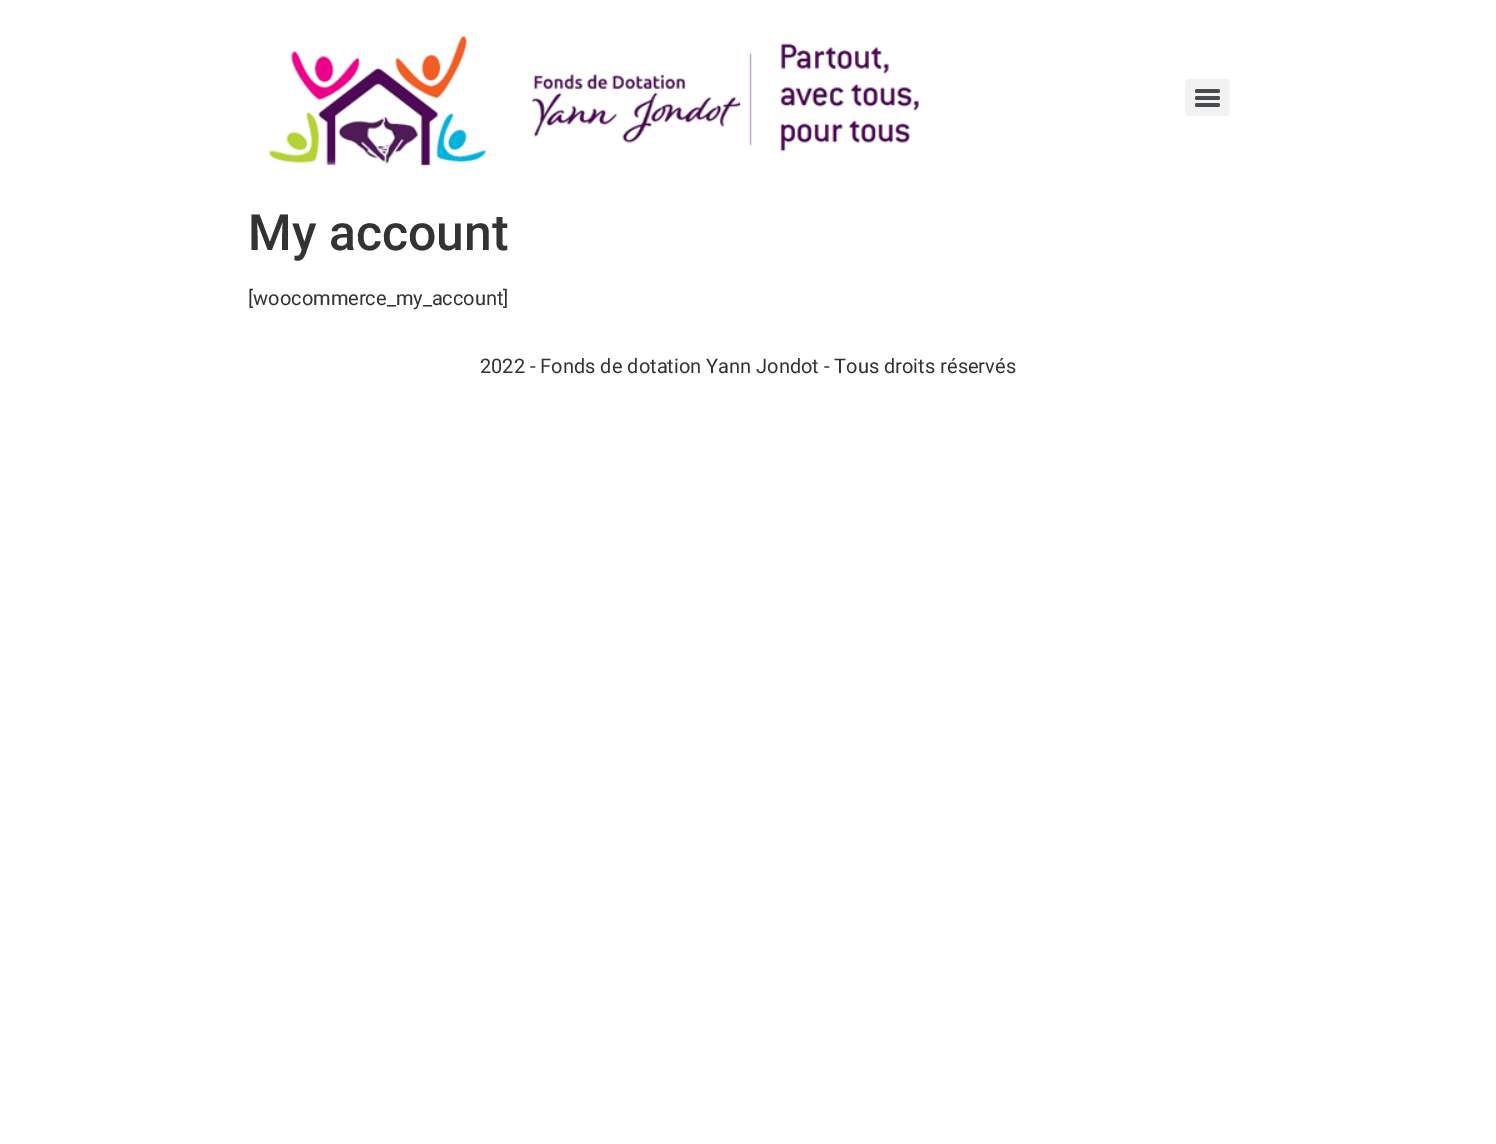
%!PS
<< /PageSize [1496 1144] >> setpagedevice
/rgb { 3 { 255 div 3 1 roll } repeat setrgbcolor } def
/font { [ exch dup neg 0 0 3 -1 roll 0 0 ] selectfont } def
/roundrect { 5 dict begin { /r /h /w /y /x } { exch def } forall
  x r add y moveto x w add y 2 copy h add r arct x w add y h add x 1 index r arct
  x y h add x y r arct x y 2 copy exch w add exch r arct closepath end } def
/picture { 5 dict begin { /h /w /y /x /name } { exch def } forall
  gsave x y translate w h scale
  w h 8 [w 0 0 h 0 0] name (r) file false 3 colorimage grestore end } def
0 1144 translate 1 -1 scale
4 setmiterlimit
255 255 255 rgb
0 0 1496 1144 rectfill
(img/1.rgb) 268 36 651 130 picture
242 242 242 rgb
1185 79 45 37 4 roundrect fill
73 76 79 rgb
1195 96 25 4 2 roundrect fill
1195 89 25 4 2 roundrect fill
1195 103 25 4 2 roundrect fill
/Roboto-Medium 50 font
51 51 51 rgb
248 250 moveto (My account) show
/Roboto-Regular 20 font
248 305 moveto ([woocommerce_my_account]) show
480 373 moveto (2022 - Fonds de dotation Yann Jondot - Tous droits réservés) show
showpage
